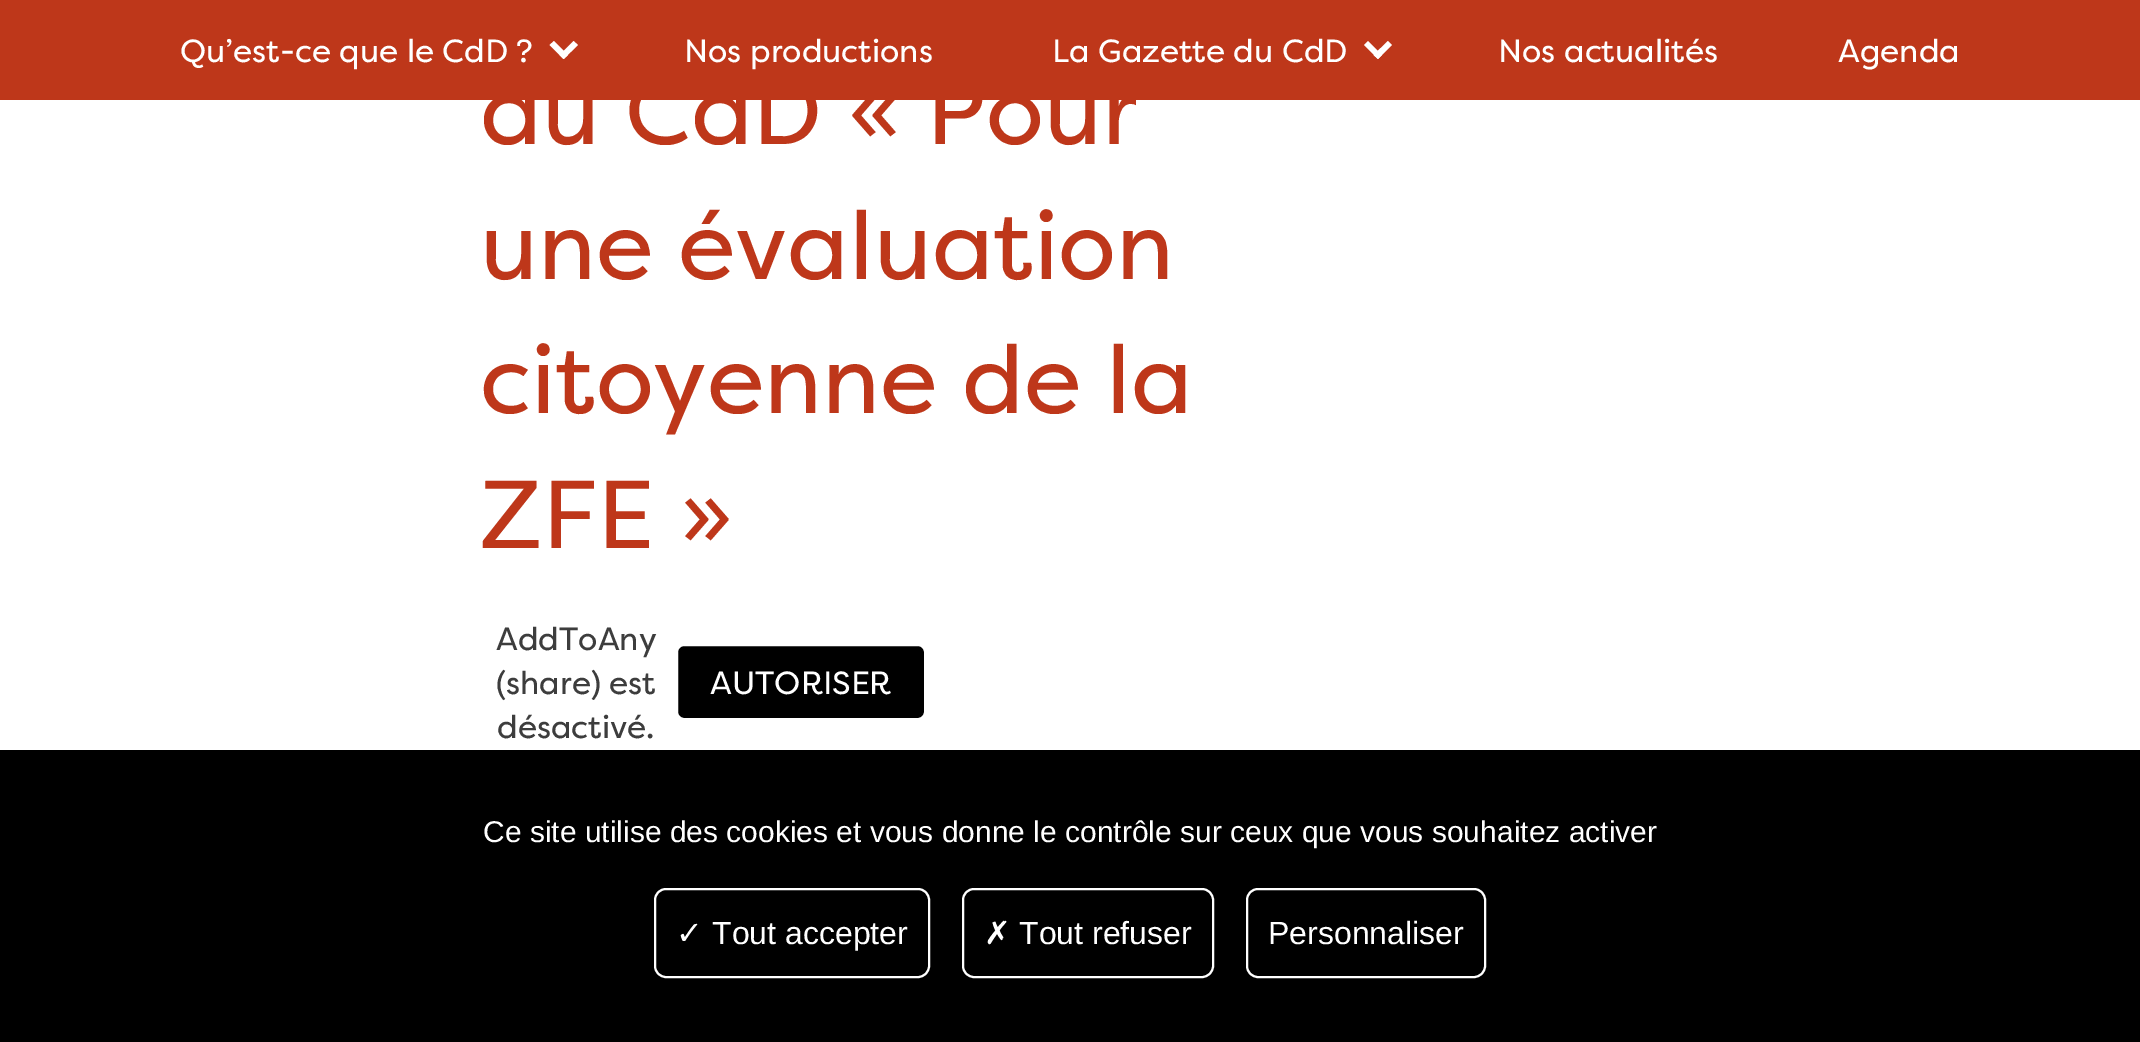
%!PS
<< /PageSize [2140 1042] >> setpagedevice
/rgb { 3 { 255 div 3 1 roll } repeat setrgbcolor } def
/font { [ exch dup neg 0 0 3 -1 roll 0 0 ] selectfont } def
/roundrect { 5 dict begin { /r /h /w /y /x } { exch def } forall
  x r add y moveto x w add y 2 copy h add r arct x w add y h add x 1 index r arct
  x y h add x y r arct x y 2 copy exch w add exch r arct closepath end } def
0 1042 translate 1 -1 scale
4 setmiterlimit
255 255 255 rgb
0 0 2140 1042 rectfill
190 55 26 rgb
0 0 2140 100 rectfill
255 255 255 rgb
559.5 55 moveto 573.5 41 lineto 578 45 lineto 563.5 59 lineto closepath fill
549.5 45 moveto 554 41 lineto 568 55 lineto 563.5 59 lineto closepath fill
1373.5 55 moveto 1388 41 lineto 1392 45 lineto 1378 59 lineto closepath fill
1364 45 moveto 1368 41 lineto 1382 55 lineto 1378 59 lineto closepath fill
0 0 0 rgb
677 645 248 74 7 roundrect gsave fill grestore
255 255 255 rgb
2 setlinewidth
stroke
0 0 0 rgb
0 750 2140 292 rectfill
255 255 255 rgb
655 889 274 88 11 roundrect stroke
963 889 250 88 11 roundrect stroke
1247 889 238 88 11 roundrect stroke
/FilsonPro-Regular 32 font
[
  [(Qu’est-ce que le CdD ?) 180 62]
  [(Nos productions) 684 62]
  [(La Gazette du CdD) 1052 62]
  [(Nos actualités) 1498 62]
  [(Agenda) 1838 62]
] { aload pop moveto show } forall
/FilsonPro-Regular 96 font
190 55 26 rgb
[
  [(du CdD « Pour) 480 144]
  [(une évaluation) 480 279]
  [(citoyenne de la) 480 413]
  [(ZFE ») 480 548]
] { aload pop moveto show } forall
/FilsonPro-Regular 32 font
61 61 61 rgb
496 650 moveto (AddToAny) show
496 694 moveto (\(share\) est) show
255 255 255 rgb
710 694 moveto (AUTORISER) show
61 61 61 rgb
497 738 moveto (désactivé.) show
/LiberationSans-Regular 30 font
255 255 255 rgb
483 842 moveto (Ce site utilise des cookies et vous donne le contrôle sur ceux que vous souhaitez activer) show
/DejaVuSans-Regular 32 font
676 944 moveto (✓) show
/LiberationSans-Regular 32 font
712 944 moveto (Tout accepter) show
/DejaVuSans-Regular 32 font
984 944 moveto (✗) show
/LiberationSans-Regular 32 font
1019 944 moveto (Tout refuser) show
1268 944 moveto (Personnaliser) show
showpage
